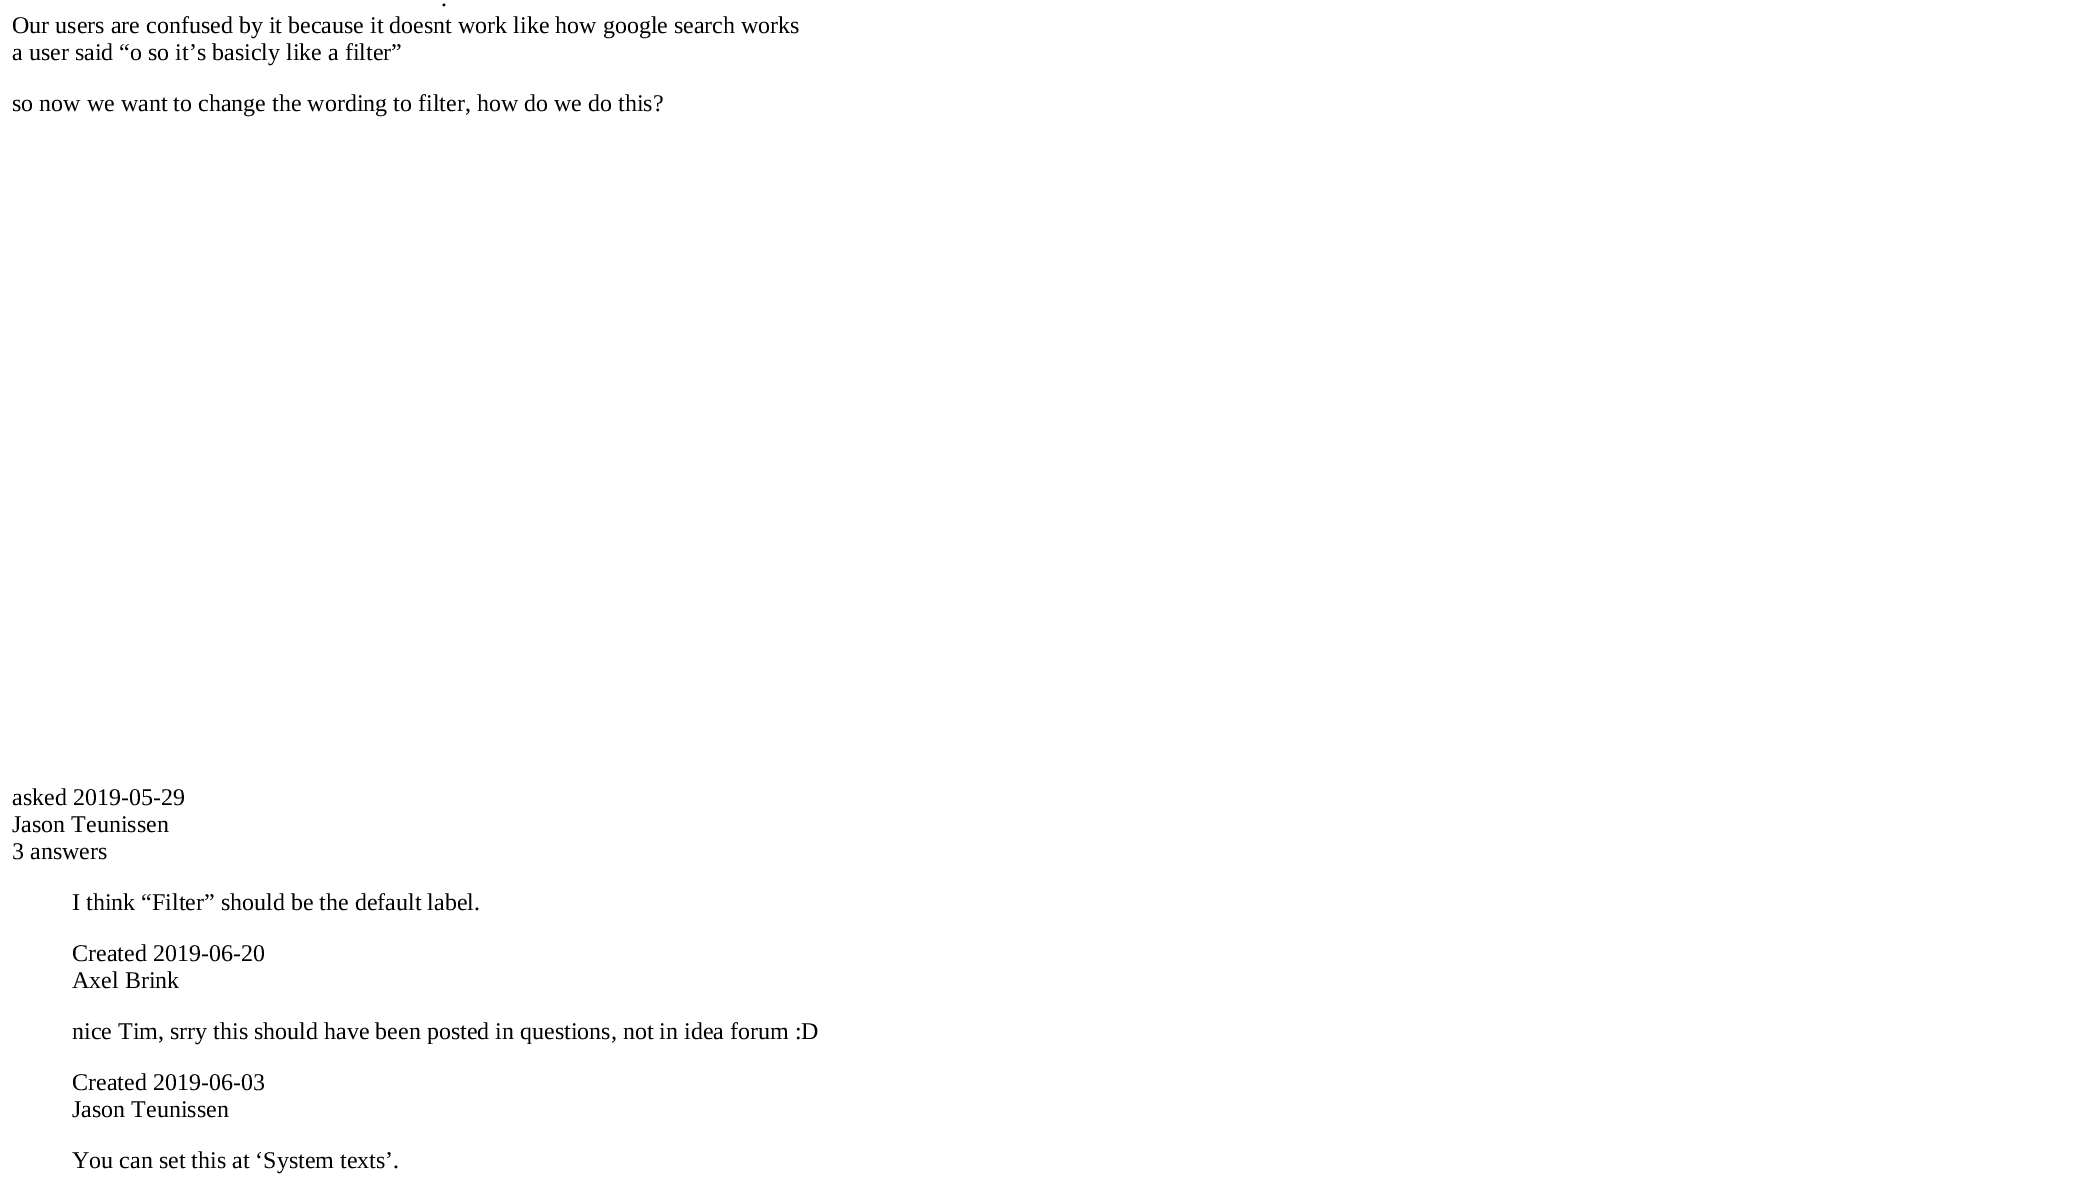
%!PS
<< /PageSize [2087 1200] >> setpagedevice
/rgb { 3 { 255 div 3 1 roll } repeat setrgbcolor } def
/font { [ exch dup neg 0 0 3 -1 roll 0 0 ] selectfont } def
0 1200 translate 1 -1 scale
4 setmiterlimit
255 255 255 rgb
0 0 2087 1200 rectfill
/LiberationSerif-Regular 24 font
0 0 0 rgb
[
  [(.) 441 6]
  [(Our users are confused by it because it doesnt work like how google search works) 12 33]
  [(a user said “o so it’s basicly like a filter”) 12 60]
  [(so now we want to change the wording to filter, how do we do this?) 12 111]
  [(asked 2019-05-29) 12 805]
  [(Jason Teunissen) 12 832]
  [(3 answers) 12 859]
  [(I think “Filter” should be the default label.) 72 910]
  [(Created 2019-06-20) 72 961]
  [(Axel Brink) 72 988]
  [(nice Tim, srry this should have been posted in questions, not in idea forum :D) 72 1039]
  [(Created 2019-06-03) 72 1090]
  [(Jason Teunissen) 72 1117]
  [(You can set this at ‘System texts’.) 72 1168]
] { aload pop moveto show } forall
showpage
